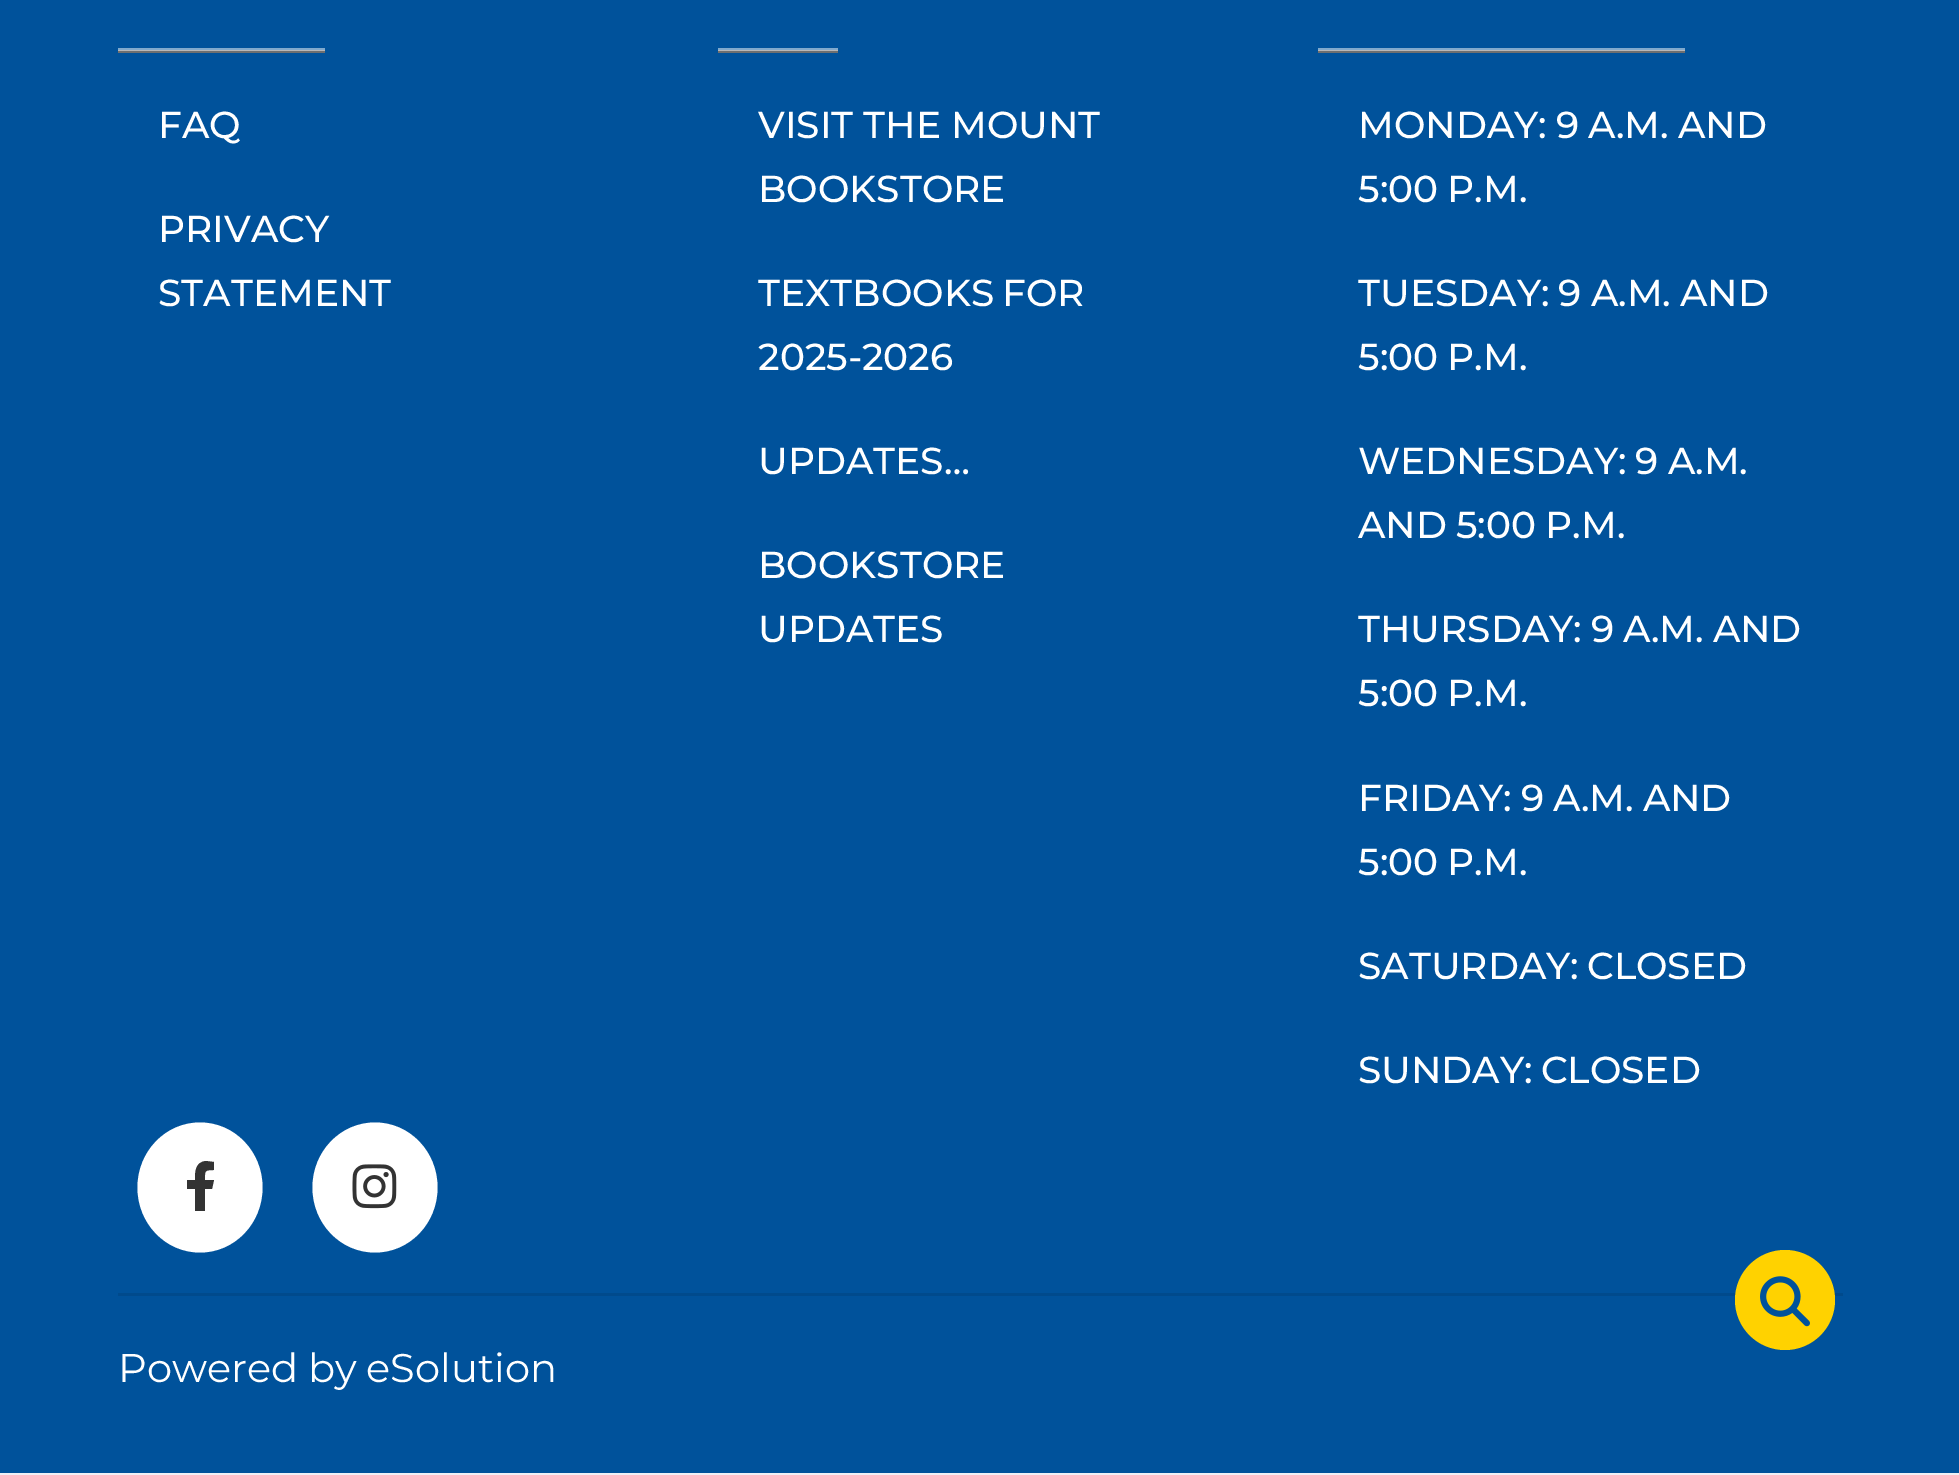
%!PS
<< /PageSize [1959 1475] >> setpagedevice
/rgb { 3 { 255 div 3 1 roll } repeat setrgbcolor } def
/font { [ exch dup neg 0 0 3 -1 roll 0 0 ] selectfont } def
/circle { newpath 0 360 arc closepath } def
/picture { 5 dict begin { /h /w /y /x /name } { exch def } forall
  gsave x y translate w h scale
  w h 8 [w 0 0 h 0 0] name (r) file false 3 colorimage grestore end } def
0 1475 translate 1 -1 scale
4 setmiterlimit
239 240 245 rgb
0 0 1959 1475 rectfill
[
  [0 0 1959 1473 0 82 155]
  [1318 48 367 2 128 169 205]
  [718 48 120 2 128 169 205]
  [118 48 207 2 128 169 205]
  [118 51 207 2 110 111 112]
  [118 50 207 1 183 183 184]
  [718 51 120 2 110 111 112]
  [718 50 120 1 183 183 184]
  [1318 51 367 2 110 111 112]
  [1318 50 367 1 183 183 184]
] { aload pop rgb rectfill } forall
255 255 255 rgb
200 1122.5 moveto 234.5 1122.5 262.5 1151.5 262.5 1187.5 curveto 262.5 1223.5 234.5 1252.5 200 1252.5 curveto 165.5 1252.5 137.5 1223.5 137.5 1187.5 curveto 137.5 1151.5 165.5 1122.5 200 1122.5 curveto closepath fill
51 51 51 rgb
212 1189 moveto 214 1180 lineto 205 1180 lineto 205 1171 204 1170 214 1170 curveto 214 1162 lineto 206 1161 lineto 195 1162 195 1172 195 1180 curveto 187 1180 lineto 187 1189 lineto 195 1189 lineto 195 1211 lineto 205 1211 lineto 205 1189 lineto closepath fill
255 255 255 rgb
375 1122.5 moveto 409.5 1122.5 437.5 1151.5 437.5 1187.5 curveto 437.5 1223.5 409.5 1252.5 375 1252.5 curveto 340.5 1252.5 312.5 1223.5 312.5 1187.5 curveto 312.5 1151.5 340.5 1122.5 375 1122.5 curveto closepath fill
(img/1.rgb) 352 1164 45 45 picture
0 74 140 rgb
118 1293 1725 3 rectfill
255 210 0 rgb
1785 1300 50 circle fill
(img/2.rgb) 1760 1276 50 51 picture
/Montserrat-Medium 37.5 font
255 255 255 rgb
[
  [(FAQ) 158 138]
  [(PRIVACY) 158 242]
  [(STATEMENT) 158 306]
  [(VISIT THE MOUNT) 758 138]
  [(BOOKSTORE) 758 202]
] { aload pop moveto show } forall
758 306 moveto -2 0 32 (TEXTBOOKS FOR) widthshow
[
  [(2025-2026) 758 370]
  [(UPDATES…) 758 474]
  [(BOOKSTORE) 758 578]
  [(UPDATES) 758 642]
] { aload pop moveto show } forall
1358 138 moveto -1 0 32 (MONDAY: 9 A.M. AND) widthshow
1358 202 moveto -1 0 32 (5:00 P.M.) widthshow
1358 306 moveto -1 0 32 (TUESDAY: 9 A.M. AND) widthshow
1358 370 moveto -1 0 32 (5:00 P.M.) widthshow
1358 474 moveto -1 0 32 (WEDNESDAY: 9 A.M.) widthshow
1358 538 moveto -1 0 32 (AND 5:00 P.M.) widthshow
1358 642 moveto -1 0 32 (THURSDAY: 9 A.M. AND) widthshow
1358 706 moveto -1 0 32 (5:00 P.M.) widthshow
1358 811 moveto -1 0 32 (FRIDAY: 9 A.M. AND) widthshow
1358 875 moveto -1 0 32 (5:00 P.M.) widthshow
1358 979 moveto -2 0 32 (SATURDAY: CLOSED) widthshow
1358 1083 moveto -2 0 32 (SUNDAY: CLOSED) widthshow
/Montserrat-Regular 40 font
118 1382 moveto -1 0 32 (Powered by eSolution) widthshow
showpage
